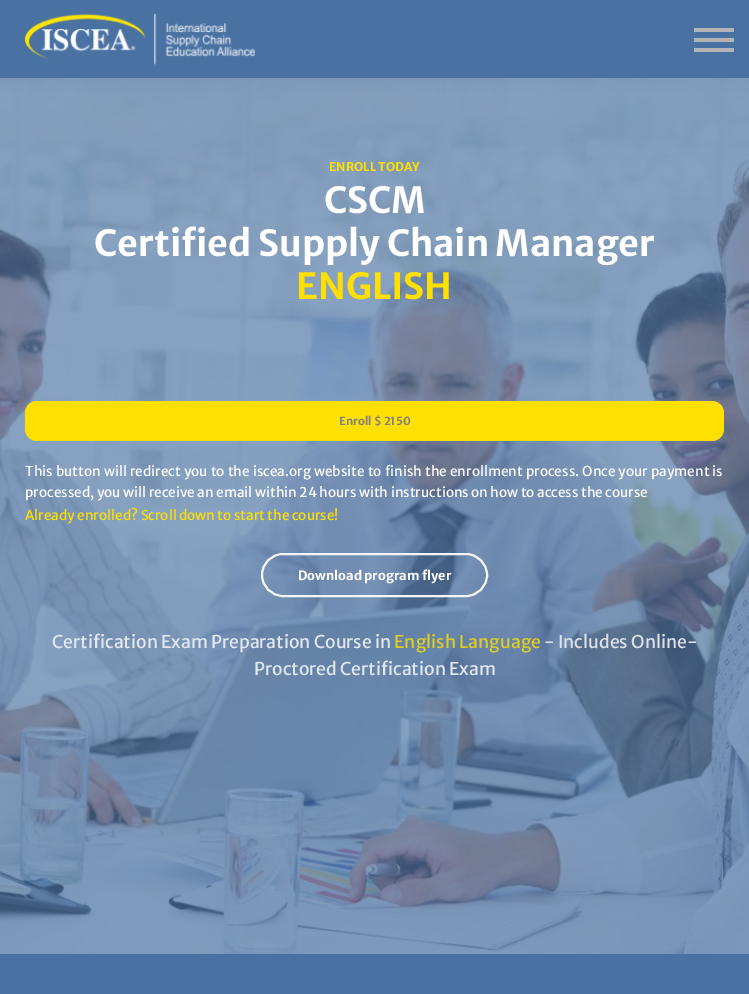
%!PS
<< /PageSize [749 994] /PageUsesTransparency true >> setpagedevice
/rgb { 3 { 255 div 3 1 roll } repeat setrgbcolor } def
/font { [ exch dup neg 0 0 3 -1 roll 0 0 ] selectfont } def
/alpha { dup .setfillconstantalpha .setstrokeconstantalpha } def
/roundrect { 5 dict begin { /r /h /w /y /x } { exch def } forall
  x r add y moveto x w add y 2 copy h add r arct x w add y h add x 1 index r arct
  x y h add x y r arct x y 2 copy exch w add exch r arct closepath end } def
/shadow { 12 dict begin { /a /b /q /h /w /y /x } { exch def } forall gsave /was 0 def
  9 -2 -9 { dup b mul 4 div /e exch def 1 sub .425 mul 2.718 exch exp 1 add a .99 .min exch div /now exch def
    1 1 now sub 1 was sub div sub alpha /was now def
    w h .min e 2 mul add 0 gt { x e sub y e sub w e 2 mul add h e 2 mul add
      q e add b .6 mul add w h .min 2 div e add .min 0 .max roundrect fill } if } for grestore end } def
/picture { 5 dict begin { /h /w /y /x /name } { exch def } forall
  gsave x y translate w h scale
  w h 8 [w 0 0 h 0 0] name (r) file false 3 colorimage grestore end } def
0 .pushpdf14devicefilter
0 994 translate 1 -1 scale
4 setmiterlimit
255 255 255 rgb
0 0 749 994 rectfill
(img/2.rgb) 0 78 749 876 picture
0 0 0 rgb
0 0 749 78 0 7.5 0.05 shadow
73 113 162 rgb
0 0 749 78 rectfill
(img/1.rgb) 25 13 230 52 picture
[
  [694 48 40 4 180 180 180]
  [694 28 40 4 180 180 180]
  [694 38 40 4 180 180 180]
] { aload pop rgb rectfill } forall
255 224 0 rgb
25 401 699 40 12 roundrect fill
245 245 245 rgb
2 setlinewidth
262 554 225 42 21 roundrect stroke
73 113 162 rgb
0 954 749 40 rectfill
/MerriweatherSans-Bold 12 font
255 224 0 rgb
329 171 moveto (ENROLL TODAY) show
/MerriweatherSans-Bold 36 font
255 255 255 rgb
324 213 moveto (CSCM) show
94 256 moveto (Certified Supply Chain Manager) show
255 224 0 rgb
296 299 moveto (ENGLISH) show
/MerriweatherSans-Bold 11.25 font
130 129 129 rgb
339 425 moveto (Enroll $ 2150) show
/MerriweatherSans-Regular 13.6 font
255 255 255 rgb
25 476 moveto 0.6 0 32 (This button will redirect you to the iscea.org website to finish the enrollment process. Once your payment is) widthshow
25 497 moveto (processed, you will receive an email within 24 hours with instructions on how to access the course) show
255 224 0 rgb
25 520 moveto (Already enrolled? Scroll down to start the course!) show
/MerriweatherSans-Bold 12.75 font
255 255 255 rgb
298 580 moveto (Download program flyer) show
/MerriweatherSans-Regular 17.6 font
227 232 239 rgb
52 648 moveto (Certification Exam Preparation Course in) show
224 205 34 rgb
394 648 moveto (English Language) show
221 226 232 rgb
544 648 moveto (- Includes Online-) show
227 232 239 rgb
254 675 moveto (Proctored Certification Exam) show
.poppdf14devicefilter showpage
